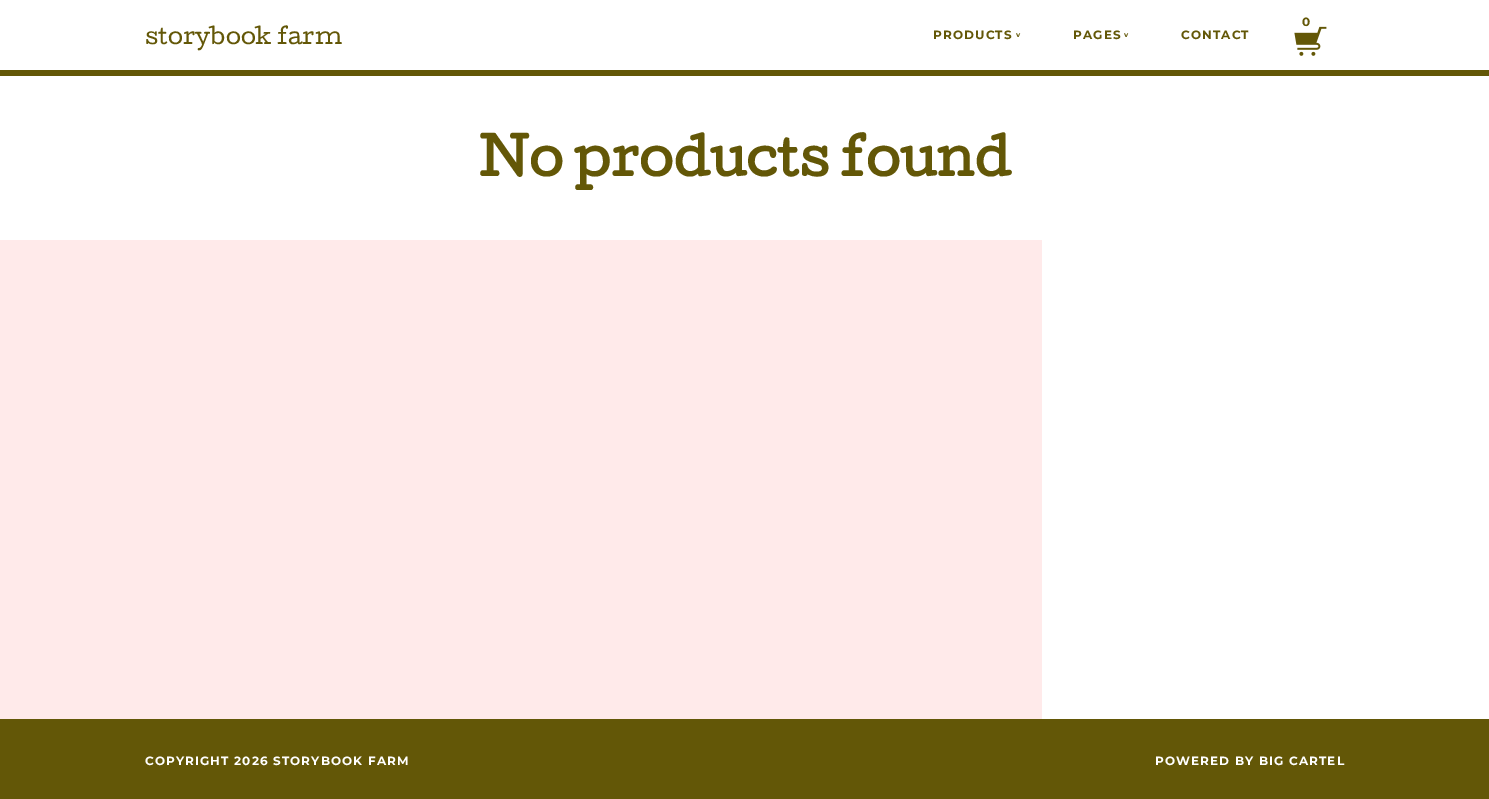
%!PS
<< /PageSize [1489 799] >> setpagedevice
/rgb { 3 { 255 div 3 1 roll } repeat setrgbcolor } def
/font { [ exch dup neg 0 0 3 -1 roll 0 0 ] selectfont } def
/picture { 5 dict begin { /h /w /y /x /name } { exch def } forall
  gsave x y translate w h scale
  w h 8 [w 0 0 h 0 0] name (r) file false 3 colorimage grestore end } def
0 799 translate 1 -1 scale
4 setmiterlimit
255 255 255 rgb
0 0 1489 799 rectfill
[
  [0 70 1489 6 99 87 7]
  [0 240 1042 479 255 234 234]
  [0 719 1489 80 99 87 7]
] { aload pop rgb rectfill } forall
/Cutive-Regular 22 font
145 44 moveto (storybook farm) show
/Montserrat-Bold 12 font
1302 26 moveto 1.1 0 (0) ashow
(img/1.rgb) 1294 26 33 30 picture
933 39 moveto 1.1 0 (PRODUCTS) ashow
/Montserrat-Bold 7 font
1016 37 moveto 4 0 (v) ashow
/Montserrat-Bold 12 font
1073 39 moveto 1.1 0 (PAGES) ashow
/Montserrat-Bold 7 font
1124 37 moveto 4 0 (v) ashow
/Montserrat-Bold 12 font
1181 39 moveto 1.1 0 (CONTACT) ashow
/Cutive-Bold 50 font
479 176 moveto (No products found) show
/Montserrat-Bold 12 font
255 255 255 rgb
145 765 moveto 1.1 0 (COPYRIGHT 2026 STORYBOOK FARM) ashow
1155 765 moveto 1.1 0 (POWERED BY BIG CARTEL) ashow
showpage
